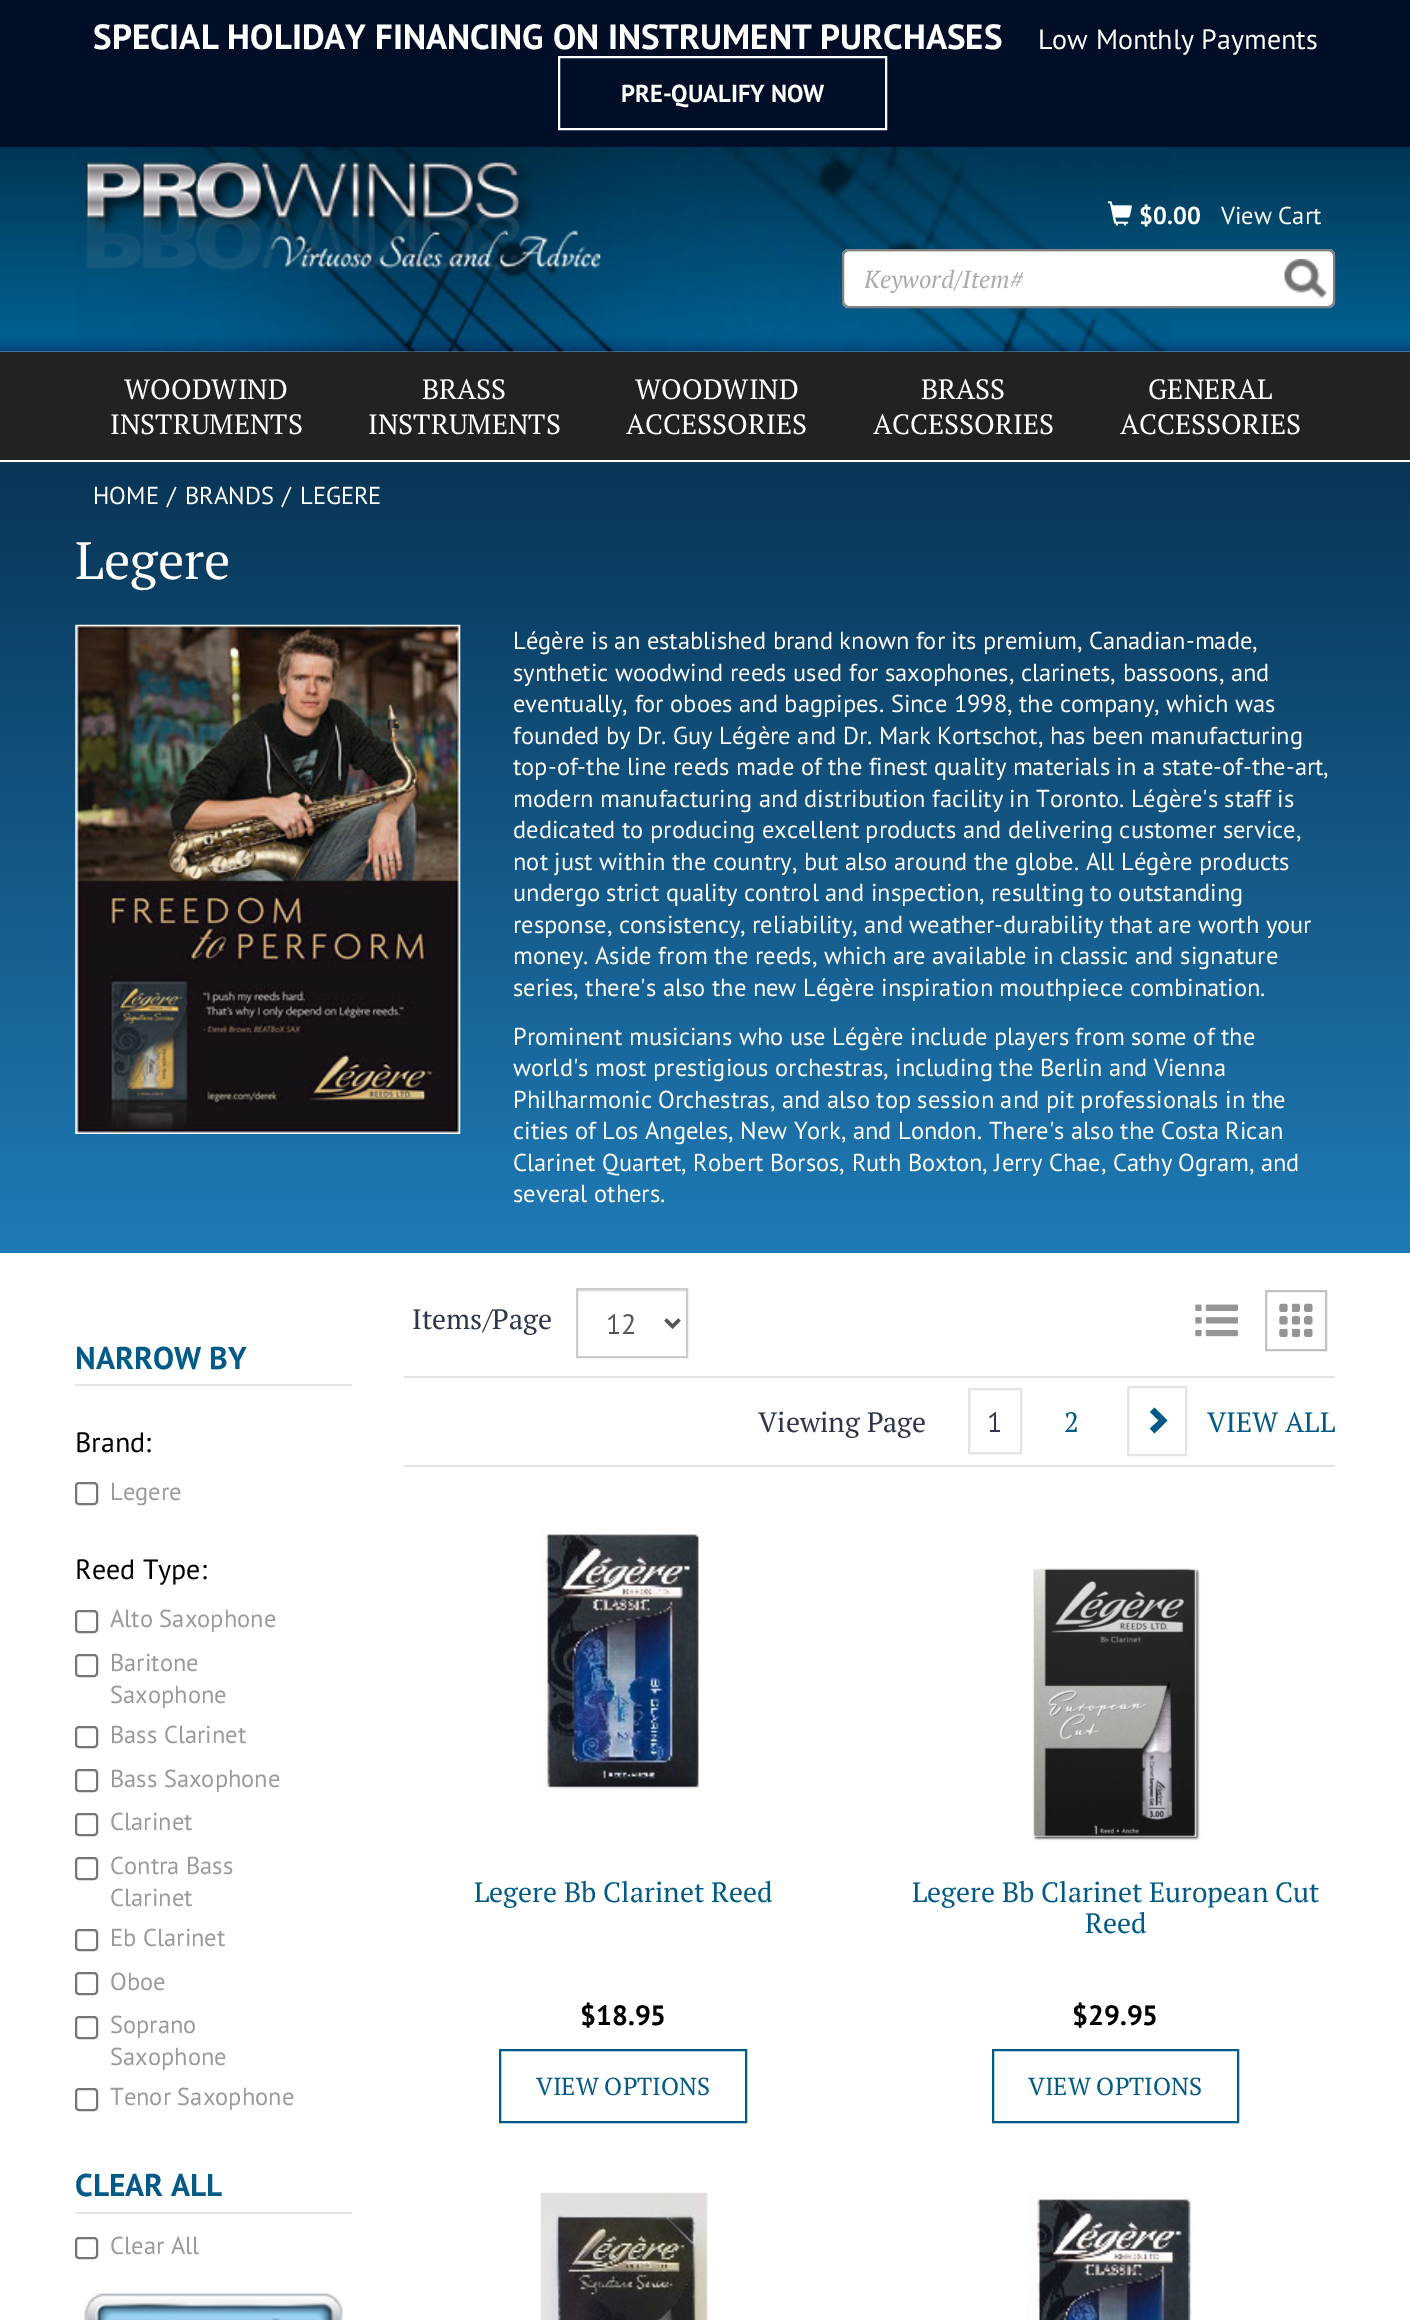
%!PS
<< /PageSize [1410 2320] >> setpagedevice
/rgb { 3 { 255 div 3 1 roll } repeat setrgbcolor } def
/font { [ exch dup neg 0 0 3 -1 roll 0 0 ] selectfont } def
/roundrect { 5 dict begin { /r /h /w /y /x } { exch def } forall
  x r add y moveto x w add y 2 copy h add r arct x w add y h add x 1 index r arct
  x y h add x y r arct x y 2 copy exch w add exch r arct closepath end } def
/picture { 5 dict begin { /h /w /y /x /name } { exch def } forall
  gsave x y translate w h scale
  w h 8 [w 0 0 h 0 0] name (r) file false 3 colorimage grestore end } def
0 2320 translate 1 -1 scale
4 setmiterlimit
255 255 255 rgb
0 0 1410 2320 rectfill
0 14 40 rgb
0 0 1410 147 rectfill
255 255 255 rgb
2 setlinewidth
559 57 327 72 rectstroke
(img/1.rgb) 0 147 1410 205 picture
(img/2.rgb) 84 160 517 111 picture
(img/3.rgb) 1107 201 25 25 picture
842 249 493 59 7 roundrect fill
236 236 236 rgb
849 252 moveto 1328 252 lineto 1331 252 1334 254 1334 257 curveto 1334 255 lineto 1334 252 1332 250 1329 250 curveto 849 250 lineto 846 250 844 252 844 255 curveto 844 257 lineto 844 254 846 252 849 252 curveto closepath fill
129 129 129 rgb
843 250 491 57 6 roundrect stroke
(img/4.rgb) 1284 259 43 39 picture
34 34 34 rgb
0 352 1410 108 rectfill
gsave 0 462 moveto 1410 462 lineto 1410 1253 lineto 0 1253 lineto closepath clip newpath
<< /ShadingType 2 /ColorSpace /DeviceRGB /Coords [0 462 0 1253] /Extend [true true] /Function << /FunctionType 2 /Domain [0 1] /C0 [0.035 0.208 0.337] /C1 [0.122 0.482 0.714] /N 1 >> >> shfill grestore
(img/5.rgb) 75 624 386 510 picture
228 228 228 rgb
75 1384 277 2 rectfill
118 118 118 rgb
76 1483 21 21 3 roundrect stroke
76 1611 21 21 3 roundrect stroke
76 1655 21 21 3 roundrect stroke
76 1727 21 20 3 roundrect stroke
76 1770 21 21 3 roundrect stroke
76 1814 21 21 3 roundrect stroke
76 1858 21 21 3 roundrect stroke
76 1930 21 20 3 roundrect stroke
76 1973 21 21 3 roundrect stroke
76 2017 21 21 3 roundrect stroke
76 2089 21 21 3 roundrect stroke
228 228 228 rgb
75 2212 277 2 rectfill
118 118 118 rgb
76 2238 21 20 3 roundrect stroke
(img/6.rgb) 84 2293 259 27 picture
236 236 236 rgb
578 1290 108 2 rectfill
204 204 204 rgb
577 1289 110 68 rectstroke
85 85 85 rgb
3.5 setlinewidth
665.5 1319.5 moveto 672.5 1326.5 lineto 679.5 1319.5 lineto stroke
194 194 194 rgb
2 setlinewidth
1266 1291 60 59 rectstroke
(img/7.rgb) 1195 1304 43 33 picture
(img/8.rgb) 1279 1303 34 34 picture
228 228 228 rgb
404 1376 931 2 rectfill
404 1465 931 2 rectfill
969 1389 52 64 rectstroke
1128 1387 58 68 rectstroke
2 90 134 rgb
1167.5 1420.5 moveto 1154.5 1433.5 lineto 1150 1428.5 lineto 1158.5 1420.5 lineto 1150 1412 lineto 1154.5 1407.5 lineto closepath fill
(img/9.rgb) 541 1528 161 262 picture
500 2050 246 72 rectstroke
(img/10.rgb) 1032 1568 169 273 picture
993 2050 245 72 rectstroke
(img/11.rgb) 540 2192 171 128 picture
(img/12.rgb) 1026 2193 167 127 picture
/PTSans-Bold 35 font
255 255 255 rgb
93 49 moveto (SPECIAL HOLIDAY FINANCING ON INSTRUMENT PURCHASES) show
/PTSans-Regular 28 font
1038 49 moveto (Low Monthly Payments) show
/PTSans-Bold 24.5 font
621 102 moveto (PRE-QUALIFY NOW) show
1139 224 moveto ($0.00) show
/PTSans-Regular 24.5 font
1221 224 moveto (View Cart) show
gsave
865 263 448 33 rectclip
/PTSerif-Italic 24.5 font
171 171 171 rgb
864 288 moveto (Keyword/Item#) show
grestore
/PTSerif-Regular 28 font
[
  [(WOODWIND) 124 399]
  [(INSTRUMENTS) 110 434]
  [(BRASS) 422 399]
  [(INSTRUMENTS) 368 434]
  [(WOODWIND) 635 399]
  [(ACCESSORIES) 626 434]
  [(BRASS) 921 399]
  [(ACCESSORIES) 873 434]
  [(GENERAL) 1148 399]
  [(ACCESSORIES) 1120 434]
] { aload pop moveto show } forall
/PTSans-Regular 24.5 font
[
  [(HOME) 93 504]
  [(/) 167 504]
  [(BRANDS) 185 504]
  [(/) 282 504]
  [(LEGERE) 300 504]
] { aload pop moveto show } forall
/PTSerif-Regular 52.5 font
75 579 moveto (Legere) show
/PTSans-Regular 24.5 font
[
  [(Légère is an established brand known for its premium, Canadian-made,) 513 649]
  [(synthetic woodwind reeds used for saxophones, clarinets, bassoons, and) 513 681]
  [(eventually, for oboes and bagpipes. Since 1998, the company, which was) 513 712]
  [(founded by Dr. Guy Légère and Dr. Mark Kortschot, has been manufacturing) 513 744]
  [(top-of-the line reeds made of the finest quality materials in a state-of-the-art,) 513 775]
  [(modern manufacturing and distribution facility in Toronto. Légère's staff is) 513 807]
  [(dedicated to producing excellent products and delivering customer service,) 513 838]
  [(not just within the country, but also around the globe. All Légère products) 513 870]
  [(undergo strict quality control and inspection, resulting to outstanding) 513 901]
  [(response, consistency, reliability, and weather-durability that are worth your) 513 933]
  [(money. Aside from the reeds, which are available in classic and signature) 513 964]
  [(series, there's also the new Légère inspiration mouthpiece combination.) 513 996]
  [(Prominent musicians who use Légère include players from some of the) 513 1045]
  [(world's most prestigious orchestras, including the Berlin and Vienna) 513 1076]
  [(Philharmonic Orchestras, and also top session and pit professionals in the) 513 1108]
  [(cities of Los Angeles, New York, and London. There's also the Costa Rican) 513 1139]
  [(Clarinet Quartet, Robert Borsos, Ruth Boxton, Jerry Chae, Cathy Ogram, and) 513 1171]
  [(several others.) 513 1202]
] { aload pop moveto show } forall
/PTSans-Bold 31.5 font
2 90 134 rgb
75 1369 moveto (NARROW BY) show
/PTSans-Regular 28 font
0 0 0 rgb
75 1452 moveto (Brand:) show
/PTSans-Regular 24.5 font
154 154 154 rgb
110 1500 moveto (Legere) show
/PTSans-Regular 28 font
0 0 0 rgb
75 1579 moveto (Reed Type:) show
/PTSans-Regular 24.5 font
154 154 154 rgb
[
  [(Alto Saxophone) 110 1627]
  [(Baritone) 110 1671]
  [(Saxophone) 110 1703]
  [(Bass Clarinet) 110 1743]
  [(Bass Saxophone) 110 1787]
  [(Clarinet) 110 1830]
  [(Contra Bass) 110 1874]
  [(Clarinet) 110 1906]
  [(Eb Clarinet) 110 1946]
  [(Oboe) 110 1990]
  [(Soprano) 110 2033]
  [(Saxophone) 110 2065]
  [(Tenor Saxophone) 110 2105]
] { aload pop moveto show } forall
/PTSans-Bold 31.5 font
2 90 134 rgb
75 2196 moveto (CLEAR ALL) show
/PTSans-Regular 24.5 font
154 154 154 rgb
110 2254 moveto (Clear All) show
/PTSerif-Regular 28 font
45 54 76 rgb
412 1329 moveto (Items/Page) show
/PTSans-Regular 28 font
85 85 85 rgb
606 1334 moveto (12) show
/PTSerif-Regular 28 font
45 54 76 rgb
758 1432 moveto (Viewing Page) show
/PTSans-Regular 28 font
987 1432 moveto (1) show
/PTSerif-Regular 28 font
2 90 134 rgb
[
  [(2) 1064 1432]
  [(VIEW ALL) 1207 1432]
  [(Legere Bb Clarinet Reed) 474 1902]
] { aload pop moveto show } forall
/PTSans-Bold 28 font
0 0 0 rgb
580 2025 moveto ($18.95) show
/PTSerif-Regular 24.5 font
2 90 134 rgb
536 2095 moveto (VIEW OPTIONS) show
/PTSerif-Regular 28 font
912 1902 moveto (Legere Bb Clarinet European Cut) show
1085 1933 moveto (Reed) show
/PTSans-Bold 28 font
0 0 0 rgb
1072 2025 moveto ($29.95) show
/PTSerif-Regular 24.5 font
2 90 134 rgb
1028 2095 moveto (VIEW OPTIONS) show
showpage
